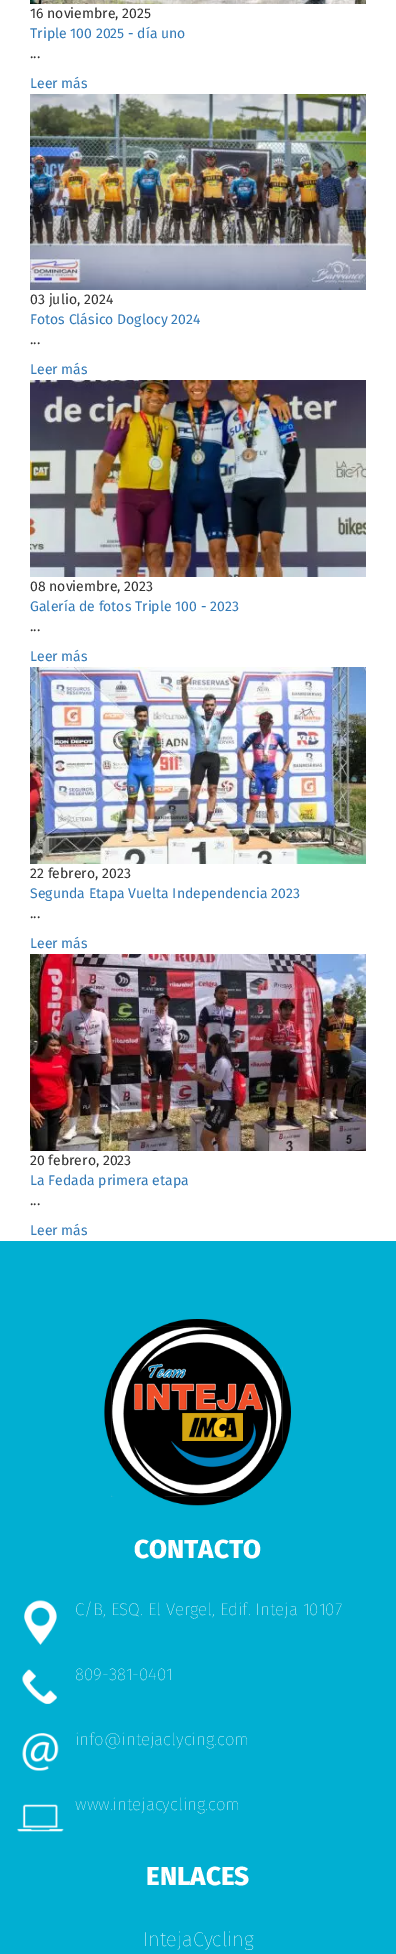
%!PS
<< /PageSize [396 1954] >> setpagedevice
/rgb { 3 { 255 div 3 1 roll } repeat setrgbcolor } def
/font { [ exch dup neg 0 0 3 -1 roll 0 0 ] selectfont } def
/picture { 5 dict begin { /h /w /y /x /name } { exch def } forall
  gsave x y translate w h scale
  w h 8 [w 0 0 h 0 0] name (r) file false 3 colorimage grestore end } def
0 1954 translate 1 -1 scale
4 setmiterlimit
255 255 255 rgb
0 0 396 1954 rectfill
(img/1.rgb) 30 0 336 4 picture
(img/2.rgb) 30 94 336 196 picture
(img/3.rgb) 30 380 336 197 picture
(img/4.rgb) 30 667 336 197 picture
(img/5.rgb) 30 954 336 197 picture
1 175 210 rgb
0 1241 396 713 rectfill
(img/6.rgb) 104 1319 187 187 picture
(img/7.rgb) 24 1600 33 45 picture
(img/8.rgb) 22 1669 35 35 picture
(img/9.rgb) 22 1733 37 38 picture
(img/10.rgb) 17 1804 47 28 picture
/FiraSans-Regular 14 font
51 51 51 rgb
30 18 moveto (16 noviembre, 2025) show
51 122 183 rgb
30 38 moveto (Triple 100 2025 - día uno) show
51 51 51 rgb
30 58 moveto (...) show
51 122 183 rgb
30 88 moveto (Leer más) show
51 51 51 rgb
30 304 moveto (03 julio, 2024) show
51 122 183 rgb
30 324 moveto (Fotos Clásico Doglocy 2024) show
51 51 51 rgb
30 344 moveto (...) show
51 122 183 rgb
30 374 moveto (Leer más) show
51 51 51 rgb
30 591 moveto (08 noviembre, 2023) show
51 122 183 rgb
30 611 moveto (Galería de fotos Triple 100 - 2023) show
51 51 51 rgb
30 631 moveto (...) show
51 122 183 rgb
30 661 moveto (Leer más) show
51 51 51 rgb
30 878 moveto (22 febrero, 2023) show
51 122 183 rgb
30 898 moveto (Segunda Etapa Vuelta Independencia 2023) show
51 51 51 rgb
30 918 moveto (...) show
51 122 183 rgb
30 948 moveto (Leer más) show
51 51 51 rgb
30 1165 moveto (20 febrero, 2023) show
51 122 183 rgb
30 1185 moveto (La Fedada primera etapa) show
51 51 51 rgb
30 1205 moveto (...) show
51 122 183 rgb
30 1235 moveto (Leer más) show
/FiraSans-ExtraBold 26 font
255 255 255 rgb
134 1558 moveto (CONTACTO) show
/FiraSans-Thin 17 font
[
  [(C/B, ESQ. El Vergel, Edif. Inteja 10107) 75 1615]
  [(809-381-0401) 75 1680]
  [(info@intejaclycing.com) 75 1745]
  [(www.intejacycling.com) 75 1810]
] { aload pop moveto show } forall
/FiraSans-ExtraBold 26 font
146 1885 moveto (ENLACES) show
/FiraSans-Thin 20 font
143 1946 moveto (IntejaCycling) show
showpage
